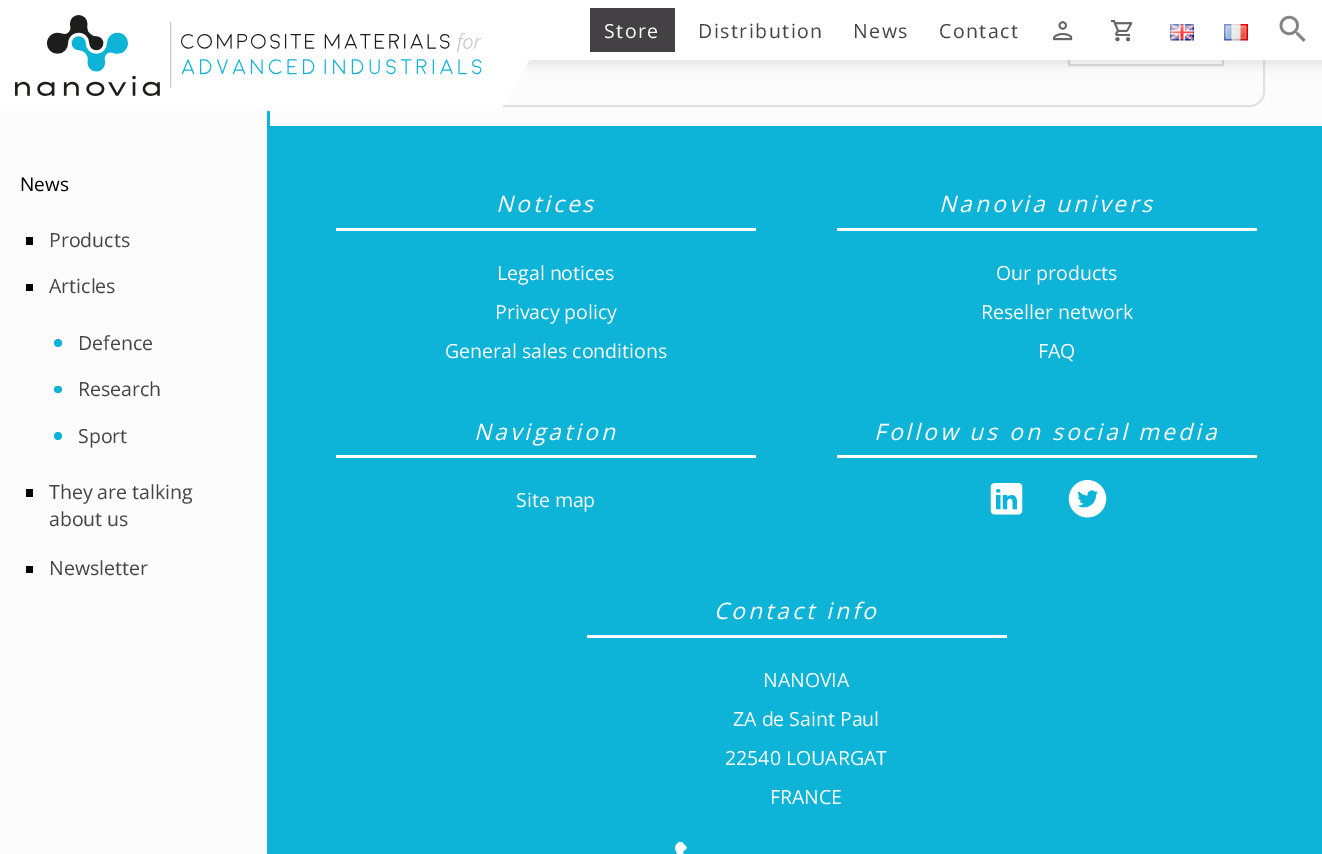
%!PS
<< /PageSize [1322 854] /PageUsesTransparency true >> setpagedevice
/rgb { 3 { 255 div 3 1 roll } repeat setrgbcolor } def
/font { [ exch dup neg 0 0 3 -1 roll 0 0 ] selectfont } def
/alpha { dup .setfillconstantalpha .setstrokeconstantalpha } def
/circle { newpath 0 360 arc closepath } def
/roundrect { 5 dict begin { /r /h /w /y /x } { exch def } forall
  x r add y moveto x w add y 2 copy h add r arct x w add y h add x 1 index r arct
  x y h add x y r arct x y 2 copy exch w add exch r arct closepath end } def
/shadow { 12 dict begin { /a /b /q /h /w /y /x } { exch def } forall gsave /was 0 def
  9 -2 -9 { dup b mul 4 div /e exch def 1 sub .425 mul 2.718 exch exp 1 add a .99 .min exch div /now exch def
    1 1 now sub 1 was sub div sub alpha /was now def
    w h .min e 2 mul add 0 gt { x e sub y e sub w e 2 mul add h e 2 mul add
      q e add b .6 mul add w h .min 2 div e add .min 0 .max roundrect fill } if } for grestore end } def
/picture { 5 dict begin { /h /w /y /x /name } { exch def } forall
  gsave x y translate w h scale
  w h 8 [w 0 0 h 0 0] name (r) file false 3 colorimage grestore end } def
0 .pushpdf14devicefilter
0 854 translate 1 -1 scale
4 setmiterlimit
252 252 252 rgb
0 0 1322 854 rectfill
225 225 225 rgb
2 setlinewidth
405 -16 859 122 14 roundrect stroke
255 255 255 rgb
1070 60 152 4 rectfill
218 218 218 rgb
1069 -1 154 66 rectstroke
0 0 0 rgb
-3 -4 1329 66 0 7.5 0.14 shadow
255 255 255 rgb
529 0 793 60 rectfill
0 0 315 111 rectfill
315 0 moveto 564 0 lineto 500 111 lineto 251 111 lineto closepath fill
(img/1.rgb) 15 15 467 81 picture
67 65 68 rgb
590 8 85 44 rectfill
(img/2.rgb) 1053 21 20 20 picture
(img/3.rgb) 1111 20 22 22 picture
(img/4.rgb) 1170 24 24 17 picture
(img/5.rgb) 1224 24 24 17 picture
(img/6.rgb) 1279 15 27 27 picture
14 179 216 rgb
267 111 3 743 rectfill
255 255 255 rgb
0 180 moveto -0.5 180 lineto 1.5 180 3 181.5 3 183.5 curveto 3 184.5 lineto 3 186.5 1.5 188 -0.5 188 curveto 0 188 lineto closepath fill
0 0 0 rgb
26 237 7 8 rectfill
26 284 7 7 rectfill
14 179 216 rgb
58 343 4 circle fill
54 386 8 7 3.5 roundrect fill
58 436 4 circle fill
0 0 0 rgb
26 489 7 8 rectfill
26 566 7 7 rectfill
255 255 255 rgb
0 621 moveto -0.5 621 lineto 1.5 621 3 622.5 3 624.5 curveto 3 625.5 lineto 3 627.5 1.5 629 -0.5 629 curveto 0 629 lineto closepath fill
0 668 moveto -0.5 668 lineto 1.5 668 3 669.5 3 671.5 curveto 3 673.5 1.5 675 -0.5 675 curveto 0 675 lineto closepath fill
[
  [270 126 1052 728 14 179 216]
  [336 228 420 3 255 255 255]
  [336 455 420 3 255 255 255]
  [837 228 420 3 255 255 255]
  [837 455 420 3 255 255 255]
] { aload pop rgb rectfill } forall
(img/7.rgb) 990 483 33 32 picture
(img/8.rgb) 1068 480 39 38 picture
587 635 420 3 rectfill
(img/9.rgb) 675 842 12 12 picture
/OpenSans-Regular 19.5 font
604 38 moveto 1.5 0 (Store) ashow
68 68 68 rgb
698 38 moveto 1.5 0 (Distribution) ashow
853 38 moveto 1.5 0 (News) ashow
939 38 moveto 1.5 0 (Contact) ashow
/OpenSans-Regular 19 font
0 0 0 rgb
20 191 moveto (News) show
/OpenSans-Regular 19.5 font
68 68 68 rgb
[
  [(Products) 49 247]
  [(Articles) 49 293]
  [(Defence) 78 350]
  [(Research) 78 396]
  [(Sport) 78 443]
  [(They are talking) 49 499]
  [(about us) 49 526]
  [(Newsletter) 49 575]
] { aload pop moveto show } forall
/OpenSans-Italic 22.8 font
255 255 255 rgb
496 212 moveto 3 0 (Notices) ashow
/OpenSans-Regular 19.5 font
[
  [(Legal notices) 497 280]
  [(Privacy policy) 495 319]
  [(General sales conditions) 445 358]
] { aload pop moveto show } forall
/OpenSans-Italic 22.8 font
474 440 moveto 3 0 (Navigation) ashow
/OpenSans-Regular 19.5 font
516 507 moveto (Site map) show
/OpenSans-Italic 22.8 font
939 212 moveto 3 0 (Nanovia univers) ashow
/OpenSans-Regular 19.5 font
[
  [(Our products) 996 280]
  [(Reseller network) 981 319]
  [(FAQ) 1038 358]
] { aload pop moveto show } forall
/OpenSans-Italic 22.8 font
874 440 moveto 3 0 (Follow us on social media) ashow
714 619 moveto 3 0 (Contact info) ashow
/OpenSans-Regular 19.5 font
[
  [(NANOVIA) 763 687]
  [(ZA de Saint Paul) 733 726]
  [(22540 LOUARGAT) 725 765]
  [(FRANCE) 770 804]
] { aload pop moveto show } forall
.poppdf14devicefilter showpage
